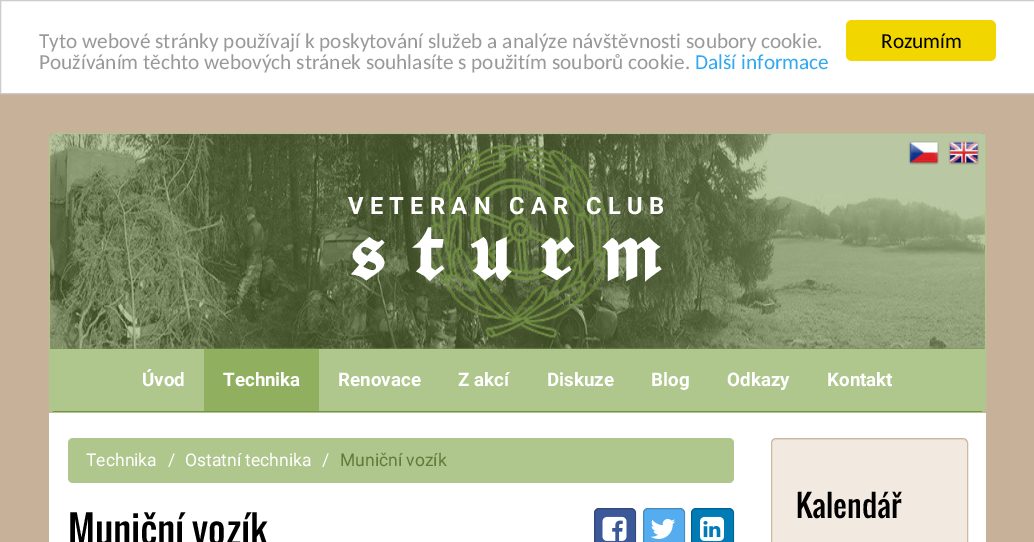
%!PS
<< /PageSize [1034 542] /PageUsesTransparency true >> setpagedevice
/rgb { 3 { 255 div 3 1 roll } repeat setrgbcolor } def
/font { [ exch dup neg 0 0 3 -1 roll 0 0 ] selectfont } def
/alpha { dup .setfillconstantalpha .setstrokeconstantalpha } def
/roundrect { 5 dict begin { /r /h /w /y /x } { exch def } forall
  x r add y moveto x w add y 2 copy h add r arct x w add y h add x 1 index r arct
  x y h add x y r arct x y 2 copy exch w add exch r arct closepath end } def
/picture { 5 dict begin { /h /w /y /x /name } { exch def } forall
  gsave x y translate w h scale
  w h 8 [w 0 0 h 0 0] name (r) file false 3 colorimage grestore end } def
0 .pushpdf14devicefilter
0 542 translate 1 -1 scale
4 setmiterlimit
199 178 153 rgb
0 0 1034 542 rectfill
255 255 255 rgb
0.5 0.5 moveto 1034.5 0.5 lineto 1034.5 93.5 lineto 0.5 93.5 lineto closepath gsave fill grestore
204 204 204 rgb
stroke
241 214 0 rgb
846 20 150 41 6 roundrect fill
116 146 69 rgb
49.5 133.5 936 279 4.5 roundrect gsave fill grestore
175 198 140 rgb
stroke
(img/1.rgb) 50 133 935 216 picture
(img/2.rgb) 908 141 31 24 picture
(img/3.rgb) 948 141 31 24 picture
(img/4.rgb) 427 145 182 193 picture
[
  [50 349 935 62 175 198 140]
  [204 349 115 62 144 176 96]
  [49 413 937 129 255 255 255]
] { aload pop rgb rectfill } forall
175 198 140 rgb
68 438 666 45 5 roundrect fill
59 89 152 rgb
594 508 42 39 5 roundrect fill
0.2 alpha
0 0 0 rgb
594.5 508.5 41 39 4.5 roundrect stroke
1 alpha
(img/5.rgb) 602 516 25 25 picture
85 172 238 rgb
643 508 42 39 5 roundrect fill
0.2 alpha
0 0 0 rgb
643.5 508.5 41 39 4.5 roundrect stroke
1 alpha
(img/6.rgb) 650 519 26 20 picture
0 123 182 rgb
691 508 43 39 5 roundrect fill
0.2 alpha
0 0 0 rgb
691.5 508.5 42 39 4.5 roundrect stroke
1 alpha
(img/7.rgb) 700 516 24 25 picture
242 234 224 rgb
771 438 197 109 5 roundrect fill
230 222 213 rgb
776 440 moveto 962 440 lineto 965 440 966 442 966 444 curveto 966 443 lineto 966 441 964 439 962 439 curveto 777 439 lineto 776 439 774 440 774 441 curveto closepath fill
205 184 160 rgb
771.5 438.5 196 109 4.5 roundrect stroke
/Carlito-Regular 21.25 font
153 153 153 rgb
39 48 moveto (Tyto webové stránky používají k poskytování služeb a analýze návštěvnosti soubory cookie.) show
39 69 moveto (Používáním těchto webových stránek souhlasíte s použitím souborů cookie.) show
49 168 240 rgb
695 69 moveto (Další informace) show
0 0 0 rgb
881 48 moveto (Rozumím) show
/Roboto-Bold 23.75 font
255 255 255 rgb
348 214 moveto 6.25 0 (VETERAN CAR CLUB) ashow
/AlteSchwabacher-Bold 81.25 font
350 280 moveto 30 0 (sturm) ashow
/Roboto-Bold 18.75 font
[
  [(Úvod) 142 386]
  [(Technika) 223 386]
  [(Renovace) 338 386]
  [(Z akcí) 458 386]
  [(Diskuze) 547 386]
  [(Blog) 651 386]
  [(Odkazy) 727 386]
  [(Kontakt) 827 386]
] { aload pop moveto show } forall
/Roboto-Regular 17.5 font
[
  [(Technika) 86 466]
  [(/) 168 466]
  [(Ostatní technika) 185 466]
  [(/) 322 466]
] { aload pop moveto show } forall
98 123 58 rgb
340 466 moveto (Muniční vozík) show
/Oswald-Regular 37.5 font
0 0 0 rgb
68 545 moveto (Muniční vozík) show
/Oswald-Regular 30 font
796 518 moveto (Kalendář) show
.poppdf14devicefilter showpage
